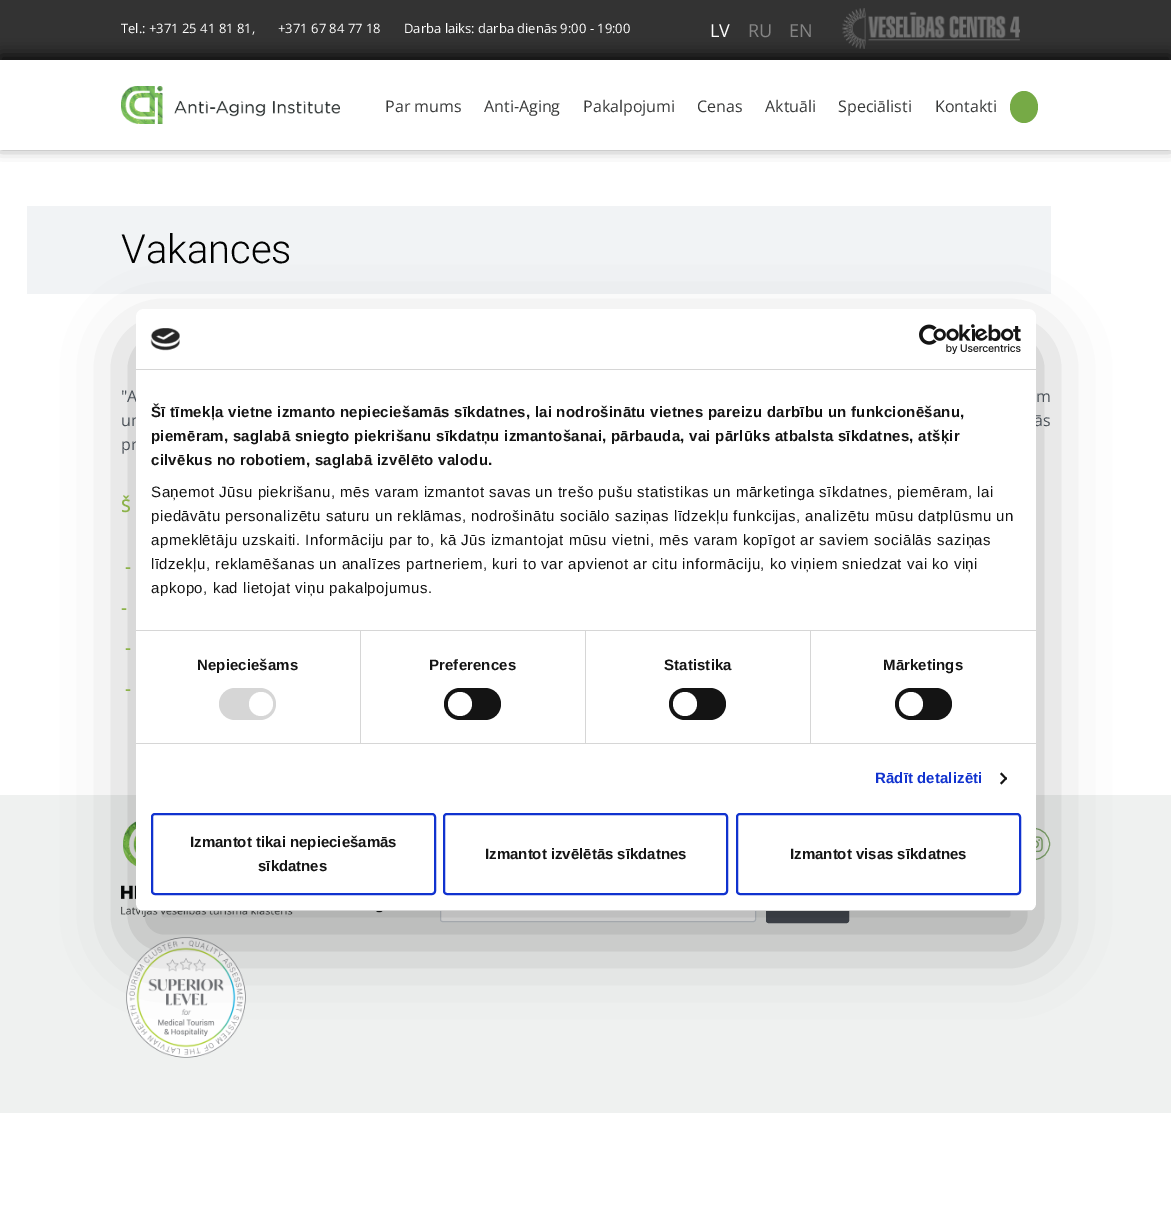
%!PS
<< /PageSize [1171 1220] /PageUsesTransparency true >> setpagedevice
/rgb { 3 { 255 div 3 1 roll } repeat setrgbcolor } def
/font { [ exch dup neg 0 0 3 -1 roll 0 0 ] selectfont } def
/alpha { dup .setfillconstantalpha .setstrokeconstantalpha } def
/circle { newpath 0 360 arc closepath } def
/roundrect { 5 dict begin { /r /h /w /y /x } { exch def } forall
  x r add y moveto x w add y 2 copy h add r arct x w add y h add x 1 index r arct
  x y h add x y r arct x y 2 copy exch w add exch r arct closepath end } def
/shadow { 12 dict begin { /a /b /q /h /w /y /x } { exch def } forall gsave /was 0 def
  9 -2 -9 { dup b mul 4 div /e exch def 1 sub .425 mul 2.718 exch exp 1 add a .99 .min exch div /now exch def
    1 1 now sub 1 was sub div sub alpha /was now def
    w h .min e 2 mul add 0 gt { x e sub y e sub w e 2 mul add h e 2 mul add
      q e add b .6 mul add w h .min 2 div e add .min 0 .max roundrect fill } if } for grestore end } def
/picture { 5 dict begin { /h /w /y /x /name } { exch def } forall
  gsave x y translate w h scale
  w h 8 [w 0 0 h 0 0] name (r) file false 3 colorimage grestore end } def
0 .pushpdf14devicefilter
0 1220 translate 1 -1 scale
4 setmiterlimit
255 255 255 rgb
0 0 1171 1220 rectfill
51 51 51 rgb
0 0 1171 60 rectfill
(img/1.rgb) 842 8 178 41 picture
gsave
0 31 moveto 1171 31 lineto 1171 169 lineto 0 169 lineto closepath 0 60 moveto 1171 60 lineto 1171 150 lineto 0 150 lineto closepath eoclip newpath
0 0 0 rgb
0 55 1171 90 0 7.5 0.75 shadow
grestore
(img/2.rgb) 121 86 219 38 picture
118 170 70 rgb
1024 91 moveto 1031.5 91 1038 98 1038 107 curveto 1038 116 1031.5 123 1024 123 curveto 1016.5 123 1010 116 1010 107 curveto 1010 98 1016.5 91 1024 91 curveto closepath fill
241 243 245 rgb
27 206 1024 88 rectfill
239 241 240 rgb
0 795 1171 318 rectfill
(img/3.rgb) 123 821 13 46 picture
(img/4.rgb) 121 885 262 32 picture
(img/5.rgb) 126 937 120 121 picture
127 165 106 rgb
1034 844 15.5 circle stroke
(img/6.rgb) 1036 836 7 17 picture
255 255 255 rgb
440.5 886.5 315 35 2 roundrect gsave fill grestore
206 212 218 rgb
stroke
73 80 87 rgb
766.5 882.5 82 40 2 roundrect gsave fill grestore
stroke
0 0 0 rgb
136 341 900 602 8 34 0.3 shadow
/OpenSans-Regular 13 font
255 255 255 rgb
[
  [(Tel.: +371 25 41 81 81,) 121 33]
  [(+371 67 84 77 18) 278 33]
  [(Darba laiks: darba dienās 9:00 - 19:00) 404 33]
] { aload pop moveto show } forall
/OpenSans-Regular 18 font
710 37 moveto (LV) show
133 133 133 rgb
748 37 moveto (RU) show
789 37 moveto (EN) show
/OpenSans-Regular 16 font
55 56 56 rgb
[
  [(Par mums) 385 112]
  [(Anti-Aging) 484 112]
  [(Pakalpojumi) 583 112]
  [(Cenas) 697 112]
  [(Aktuāli) 765 112]
  [(Speciālisti) 838 112]
  [(Kontakti) 935 112]
] { aload pop moveto show } forall
/Roboto-Light 40 font
1 1 1 rgb
121 263 moveto (Vakances) show
/OpenSans-Regular 16 font
73 80 87 rgb
121 402 moveto ("A) show
1036 402 moveto (m) show
121 426 moveto 2 0 32 (un) widthshow
1034 426 moveto 2 0 32 (ās) widthshow
121 450 moveto (pr) show
/OpenSans-Bold 17 font
140 178 74 rgb
[
  [(Š) 121 512]
  [(-) 125 573]
  [(-) 121 614]
  [(-) 125 654]
  [(-) 125 695]
] { aload pop moveto show } forall
255 255 255 rgb
136 309 900 602 8 roundrect fill
214 214 214 rgb
136 369 900 1 rectfill
(img/7.rgb) 150 328 30 23 picture
(img/8.rgb) 919 324 102 30 picture
136 630 900 1 rectfill
/LiberationSans-Bold 15 font
20 20 20 rgb
151 417 moveto 0.25 0 (Šī tīmekļa vietne izmanto nepieciešamās sīkdatnes, lai nodrošinātu vietnes pareizu darbību un funkcionēšanu,) ashow
151 441 moveto 0.25 0 (piemēram, saglabā sniegto piekrišanu sīkdatņu izmantošanai, pārbauda, vai pārlūks atbalsta sīkdatnes, atšķir) ashow
151 465 moveto 0.25 0 (cilvēkus no robotiem, saglabā izvēlēto valodu.) ashow
/LiberationSans-Regular 15 font
151 497 moveto 0.5 0 (Saņemot Jūsu piekrišanu, mēs varam izmantot savas un trešo pušu statistikas un mārketinga sīkdatnes, piemēram, lai) ashow
151 521 moveto 0.5 0 (piedāvātu personalizētu saturu un reklāmas, nodrošinātu sociālo saziņas līdzekļu funkcijas, analizētu mūsu datplūsmu un) ashow
151 545 moveto 0.5 0 (apmeklētāju uzskaiti. Informāciju par to, kā Jūs izmantojat mūsu vietni, mēs varam kopīgot ar saviem sociālās saziņas) ashow
151 569 moveto 0.5 0 (līdzekļu, reklamēšanas un analīzes partneriem, kuri to var apvienot ar citu informāciju, ko viņiem sniedzat vai ko viņi) ashow
151 593 moveto 0.5 0 (apkopo, kad lietojat viņu pakalpojumus.) ashow
214 214 214 rgb
136 743 900 1 rectfill
360 631 1 112 rectfill
/LiberationSans-Bold 15 font
20 20 20 rgb
197 670 moveto 0.1 0 (Nepieciešams) ashow
214 214 214 rgb
219 688 57 32 16 roundrect fill
255 255 255 rgb
261 704 12 circle fill
214 214 214 rgb
585 631 1 112 rectfill
20 20 20 rgb
429 670 moveto 0.1 0 (Preferences) ashow
444 688 57 32 16 roundrect fill
255 255 255 rgb
460 704 12 circle fill
214 214 214 rgb
810 631 1 112 rectfill
20 20 20 rgb
664 670 moveto 0.1 0 (Statistika) ashow
669 688 57 32 16 roundrect fill
255 255 255 rgb
685 704 12 circle fill
20 20 20 rgb
883 670 moveto 0.1 0 (Mārketings) ashow
895 688 57 32 16 roundrect fill
255 255 255 rgb
911 704 12 circle fill
16 50 207 rgb
875 783 moveto 0.1 0 (Rādīt detalizēti) ashow
20 20 20 rgb
1001.5 772.5 moveto 1007 778.5 lineto 1006 780 lineto 1000 774 lineto closepath fill
1006 777 moveto 1007 778.5 lineto 1001.5 784.5 lineto 1000 783 lineto closepath fill
gsave
136 309 900 602 8 roundrect clip newpath
214 214 214 rgb
136 910 900 1 rectfill
grestore
16 50 207 rgb
2 setlinewidth
152 814 283 80 3 roundrect stroke
20 20 20 rgb
190 847 moveto (Izmantot tikai nepieciešamās) show
258 871 moveto (sīkdatnes) show
16 50 207 rgb
444 814 283 80 3 roundrect stroke
20 20 20 rgb
485 859 moveto (Izmantot izvēlētās sīkdatnes) show
16 50 207 rgb
737 814 283 80 3 roundrect stroke
20 20 20 rgb
790 859 moveto (Izmantot visas sīkdatnes) show
.poppdf14devicefilter showpage
